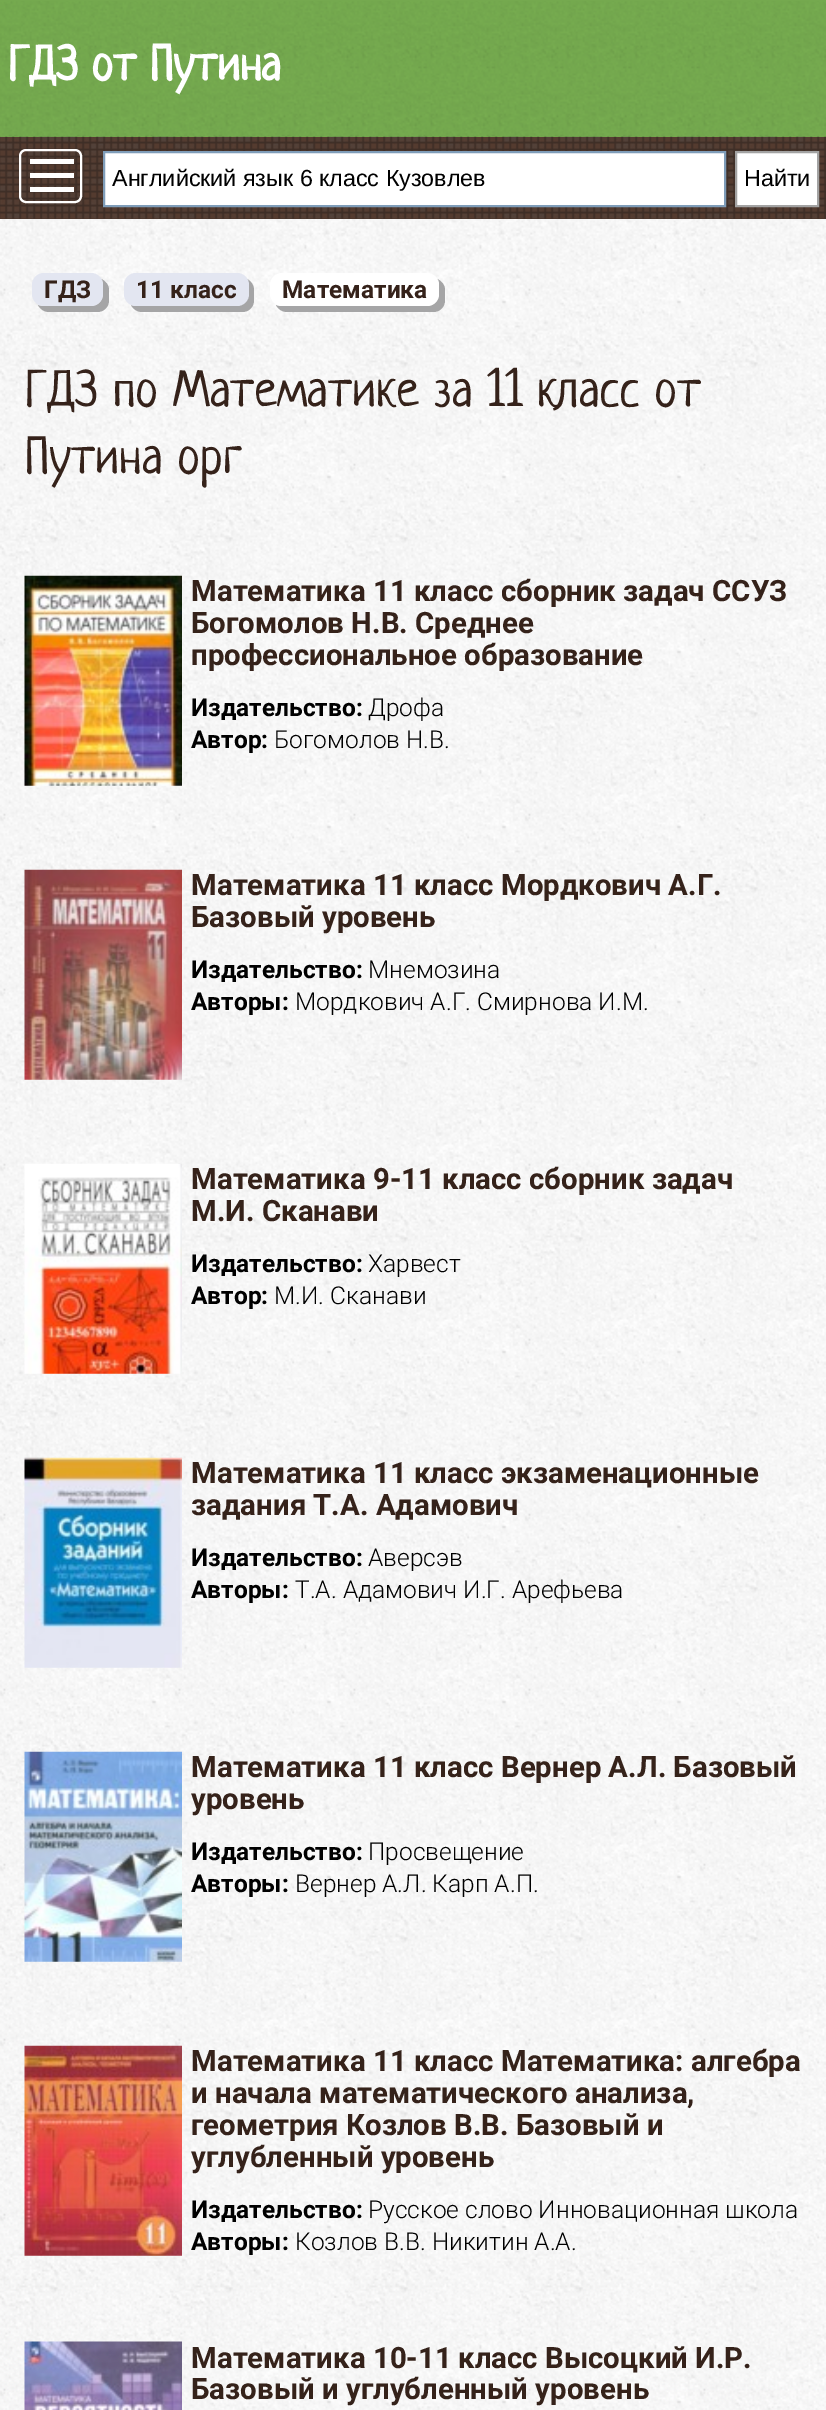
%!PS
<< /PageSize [826 2410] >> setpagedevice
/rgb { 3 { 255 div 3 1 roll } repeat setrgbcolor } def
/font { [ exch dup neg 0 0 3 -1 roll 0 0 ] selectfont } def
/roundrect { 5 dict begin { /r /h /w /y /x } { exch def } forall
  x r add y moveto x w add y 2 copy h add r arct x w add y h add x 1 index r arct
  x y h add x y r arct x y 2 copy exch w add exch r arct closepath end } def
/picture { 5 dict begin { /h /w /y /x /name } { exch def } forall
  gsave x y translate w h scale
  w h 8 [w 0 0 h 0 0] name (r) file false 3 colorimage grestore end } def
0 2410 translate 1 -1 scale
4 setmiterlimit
255 255 255 rgb
0 0 826 2410 rectfill
(img/1.rgb) 0 219 826 2191 picture
117 169 79 rgb
0 0 826 1 rectfill
(img/2.rgb) 0 1 826 136 picture
84 59 47 rgb
0 137 826 82 rectfill
(img/3.rgb) 0 136 826 83 picture
255 255 255 rgb
2 setlinewidth
20 150 61 52 6 roundrect stroke
[
  [30 159 44 5 255 255 255]
  [30 173 44 5 255 255 255]
  [30 187 44 5 255 255 255]
] { aload pop rgb rectfill } forall
104 152 moveto 725 152 lineto 725 206 lineto 104 206 lineto closepath gsave fill grestore
127 157 185 rgb
stroke
255 255 255 rgb
736 152 moveto 818 152 lineto 818 206 lineto 736 206 lineto closepath gsave fill grestore
163 163 163 rgb
stroke
165 165 166 rgb
38 305 moveto 40 309 44 312 49 312 curveto 97 312 lineto 104 312 109 307 109 300 curveto 109 290 lineto 109 285 106 281 101 279 curveto 103 281 103 283 103 285 curveto 103 294 lineto 103 301 98 306 91 306 curveto 44 306 lineto 42 306 40 306 38 305 curveto closepath fill
227 230 241 rgb
32 273 71 33 12 roundrect fill
165 165 166 rgb
131 305 moveto 133 309 137 312 142 312 curveto 242 312 lineto 249 312 254 307 254 300 curveto 254 290 lineto 254 285 251 281 247 279 curveto 248 281 248 283 248 285 curveto 248 294 lineto 248 301 243 306 236 306 curveto 136 306 lineto 135 306 133 306 131 305 curveto closepath fill
227 230 241 rgb
124 273 125 33 12 roundrect fill
165 165 166 rgb
276 305 moveto 278 309 282 312 287 312 curveto 433 312 lineto 440 312 445 307 445 300 curveto 445 290 lineto 445 285 442 281 437 279 curveto 439 281 439 283 439 285 curveto 439 294 lineto 439 301 434 306 427 306 curveto 282 306 lineto 280 306 278 306 276 305 curveto closepath fill
255 255 255 rgb
270 273 169 33 12 roundrect fill
(img/4.rgb) 24 575 158 211 picture
(img/5.rgb) 24 869 158 211 picture
(img/6.rgb) 24 1163 158 211 picture
(img/7.rgb) 24 1457 158 211 picture
(img/8.rgb) 24 1751 158 211 picture
(img/9.rgb) 24 2045 158 211 picture
(img/10.rgb) 24 2341 158 69 picture
/Neucha-Bold 49 font
8 80 moveto (ГДЗ от Путина) show
/LiberationSans-Regular 23.3 font
0 0 0 rgb
112 186 moveto (Английский язык 6 класс Кузовлев) show
744 186 moveto (Найти) show
/Roboto-Bold 24.5 font
53 34 26 rgb
[
  [(ГДЗ) 44 298]
  [(11 класс) 136 298]
  [(Математика) 282 298]
] { aload pop moveto show } forall
/Neucha-Regular 51.5 font
25 406 moveto (ГДЗ по Математике за 11 класс от) show
25 473 moveto (Путина орг) show
/Roboto-Bold 29.4 font
[
  [(Математика 11 класс сборник задач ССУЗ) 191 601]
  [(Богомолов Н.В. Среднее) 191 633]
  [(профессиональное образование) 191 665]
] { aload pop moveto show } forall
/Roboto-Bold 24.5 font
0 0 0 rgb
191 716 moveto (Издательство:) show
/Roboto-Light 24.5 font
368 716 moveto (Дрофа) show
/Roboto-Bold 24.5 font
191 748 moveto (Автор:) show
/Roboto-Light 24.5 font
274 748 moveto (Богомолов Н.В.) show
/Roboto-Bold 29.4 font
53 34 26 rgb
191 895 moveto (Математика 11 класс Мордкович А.Г.) show
191 927 moveto (Базовый уровень) show
/Roboto-Bold 24.5 font
0 0 0 rgb
191 978 moveto (Издательство:) show
/Roboto-Light 24.5 font
368 978 moveto (Мнемозина) show
/Roboto-Bold 24.5 font
191 1010 moveto (Авторы:) show
/Roboto-Light 24.5 font
295 1010 moveto (Мордкович А.Г. Смирнова И.М.) show
/Roboto-Bold 29.4 font
53 34 26 rgb
191 1189 moveto (Математика 9-11 класс сборник задач) show
191 1221 moveto (М.И. Сканави) show
/Roboto-Bold 24.5 font
0 0 0 rgb
191 1272 moveto (Издательство:) show
/Roboto-Light 24.5 font
368 1272 moveto (Харвест) show
/Roboto-Bold 24.5 font
191 1304 moveto (Автор:) show
/Roboto-Light 24.5 font
274 1304 moveto (М.И. Сканави) show
/Roboto-Bold 29.4 font
53 34 26 rgb
191 1483 moveto (Математика 11 класс экзаменационные) show
191 1515 moveto (задания Т.А. Адамович) show
/Roboto-Bold 24.5 font
0 0 0 rgb
191 1566 moveto (Издательство:) show
/Roboto-Light 24.5 font
368 1566 moveto (Аверсэв) show
/Roboto-Bold 24.5 font
191 1598 moveto (Авторы:) show
/Roboto-Light 24.5 font
295 1598 moveto (Т.А. Адамович И.Г. Арефьева) show
/Roboto-Bold 29.4 font
53 34 26 rgb
191 1777 moveto (Математика 11 класс Вернер А.Л. Базовый) show
191 1809 moveto (уровень) show
/Roboto-Bold 24.5 font
0 0 0 rgb
191 1860 moveto (Издательство:) show
/Roboto-Light 24.5 font
368 1860 moveto (Просвещение) show
/Roboto-Bold 24.5 font
191 1892 moveto (Авторы:) show
/Roboto-Light 24.5 font
295 1892 moveto (Вернер А.Л. Карп А.П.) show
/Roboto-Bold 29.4 font
53 34 26 rgb
[
  [(Математика 11 класс Математика: алгебра) 191 2071]
  [(и начала математического анализа,) 191 2103]
  [(геометрия Козлов В.В. Базовый и) 191 2135]
  [(углубленный уровень) 191 2167]
] { aload pop moveto show } forall
/Roboto-Bold 24.5 font
0 0 0 rgb
191 2218 moveto (Издательство:) show
/Roboto-Light 24.5 font
368 2218 moveto (Русское слово Инновационная школа) show
/Roboto-Bold 24.5 font
191 2250 moveto (Авторы:) show
/Roboto-Light 24.5 font
295 2250 moveto (Козлов В.В. Никитин А.А.) show
/Roboto-Bold 29.4 font
53 34 26 rgb
[
  [(Математика 10-11) 191 2368]
  [(класс Высоцкий И.Р.) 458 2368]
  [(Базовый и углубленный уровень) 191 2399]
] { aload pop moveto show } forall
showpage
